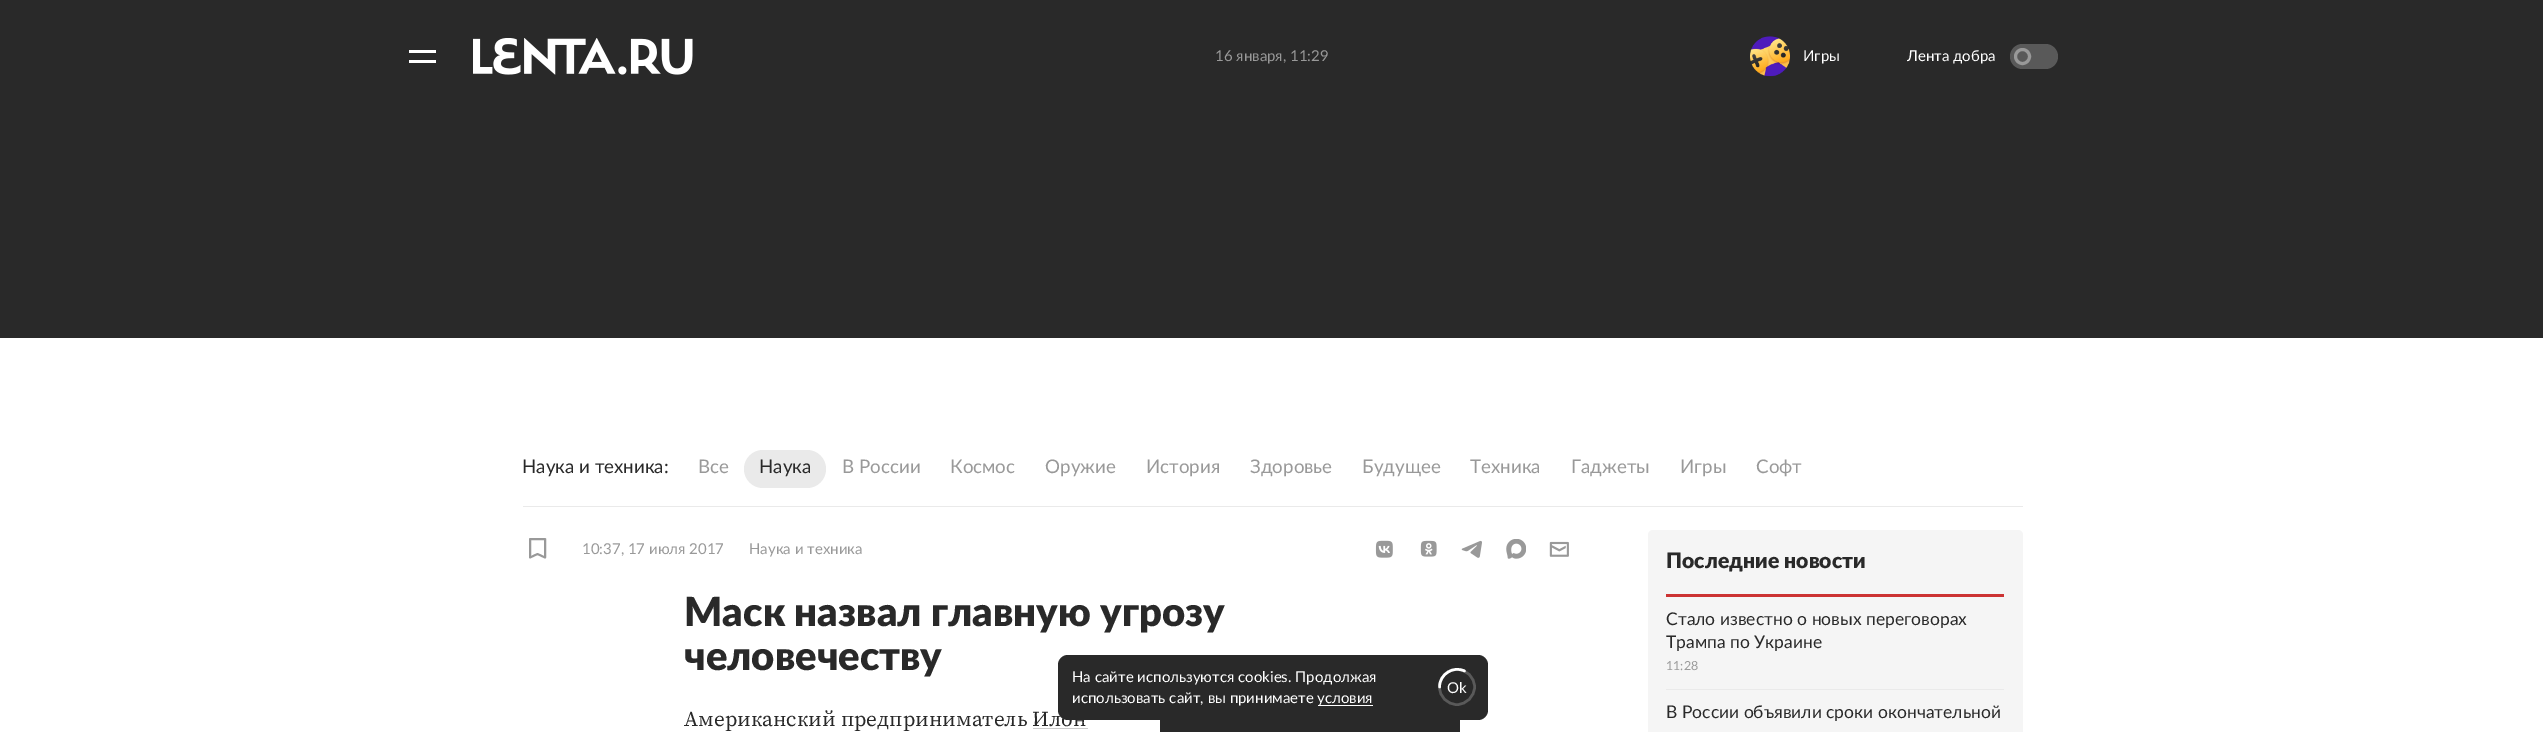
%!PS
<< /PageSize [2543 732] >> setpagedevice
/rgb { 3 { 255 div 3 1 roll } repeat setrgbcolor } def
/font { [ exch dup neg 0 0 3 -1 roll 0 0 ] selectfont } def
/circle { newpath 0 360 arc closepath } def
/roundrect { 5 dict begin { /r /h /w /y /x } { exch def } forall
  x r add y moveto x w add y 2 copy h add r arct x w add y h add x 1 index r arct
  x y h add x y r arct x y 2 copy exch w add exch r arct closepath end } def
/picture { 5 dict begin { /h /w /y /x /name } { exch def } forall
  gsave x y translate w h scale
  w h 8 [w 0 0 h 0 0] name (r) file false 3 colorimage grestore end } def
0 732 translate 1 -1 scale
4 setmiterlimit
255 255 255 rgb
0 0 2543 732 rectfill
[
  [0 0 2543 338 41 41 41]
  [409 50 27 3 255 255 255]
  [409 60 27 3 255 255 255]
] { aload pop rgb rectfill } forall
(img/1.rgb) 473 38 220 37 picture
(img/2.rgb) 1750 36 40 41 picture
89 89 89 rgb
2010 44 48 25 12.5 roundrect fill
153 153 153 rgb
3 setlinewidth
2022.5 56.5 7 circle stroke
234 234 234 rgb
523 506 1500 1 rectfill
744 450 82 38 19 roundrect fill
153 153 153 rgb
1.9 setlinewidth
1 setlinecap
1 setlinejoin
545 539 moveto 530 539 lineto 530 557.5 lineto 537.5 554 lineto 545 557.5 lineto closepath stroke
(img/3.rgb) 1375 540 18 18 picture
(img/4.rgb) 1420 540 17 17 picture
(img/5.rgb) 1461 540 21 18 picture
(img/6.rgb) 1506 539 20 20 picture
(img/7.rgb) 1549 541 20 16 picture
(img/8.rgb) 1160 720 300 12 picture
245 245 245 rgb
1648 530 375 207 5 roundrect fill
204 51 51 rgb
1666 594 338 3 rectfill
234 234 234 rgb
1666 689 338 1 rectfill
41 41 41 rgb
1058 655 430 65 10 roundrect fill
255 255 255 rgb
1318 705 55 1 rectfill
/Lato-Regular 15 font
153 153 153 rgb
1215 61 moveto (16 января, 11:29) show
255 255 255 rgb
1803 61 moveto (Игры) show
1907 61 moveto (Лента добра) show
/Lato-Regular 18.75 font
41 41 41 rgb
522 473 moveto (Наука и техника:) show
153 153 153 rgb
698 473 moveto (Все) show
41 41 41 rgb
759 473 moveto (Наука) show
153 153 153 rgb
[
  [(В России) 842 473]
  [(Космос) 950 473]
  [(Оружие) 1045 473]
  [(История) 1146 473]
  [(Здоровье) 1250 473]
  [(Будущее) 1362 473]
  [(Техника) 1470 473]
  [(Гаджеты) 1571 473]
  [(Игры) 1680 473]
  [(Софт) 1756 473]
] { aload pop moveto show } forall
/Lato-Regular 15 font
582 554 moveto (10:37, 17 июля 2017) show
749 554 moveto (Наука и техника) show
/Lato-Black 40 font
41 41 41 rgb
684 626 moveto (Маск назвал главную угрозу) show
684 670 moveto (человечеству) show
/SourceSerifPro-Regular 21.25 font
684 726 moveto (Американский предприниматель Илон) show
203 203 203 rgb
1033 728 55 1 rectfill
/Lato-Black 21.25 font
41 41 41 rgb
1666 568 moveto (Последние новости) show
/Lato-Regular 17.5 font
1666 625 moveto (Стало известно о новых переговорах) show
1666 648 moveto (Трампа по Украине) show
/Lato-Regular 12.5 font
153 153 153 rgb
1666 670 moveto (11:28) show
/Lato-Regular 17.5 font
41 41 41 rgb
1666 718 moveto (В России объявили сроки окончательной) show
/Lato-Regular 15 font
255 255 255 rgb
[
  [(На сайте используются cookies. Продолжая) 1072 682]
  [(использовать сайт, вы принимаете) 1072 703]
  [(условия) 1317 703]
  [(Ok) 1447 693]
] { aload pop moveto show } forall
89 89 89 rgb
2.5 setlinewidth
0 setlinejoin
1439.5 687 moveto 1439.5 677 1447 669.5 1457 669.5 curveto 1466.5 669.5 1474.5 677 1474.5 687 curveto 1474.5 696.5 1466.5 704.5 1457 704.5 curveto 1447 704.5 1439.5 696.5 1439.5 687 curveto closepath stroke
255 255 255 rgb
1439.5 687 moveto 1439.5 674 1453.5 665.5 1464.5 671 curveto stroke
showpage
